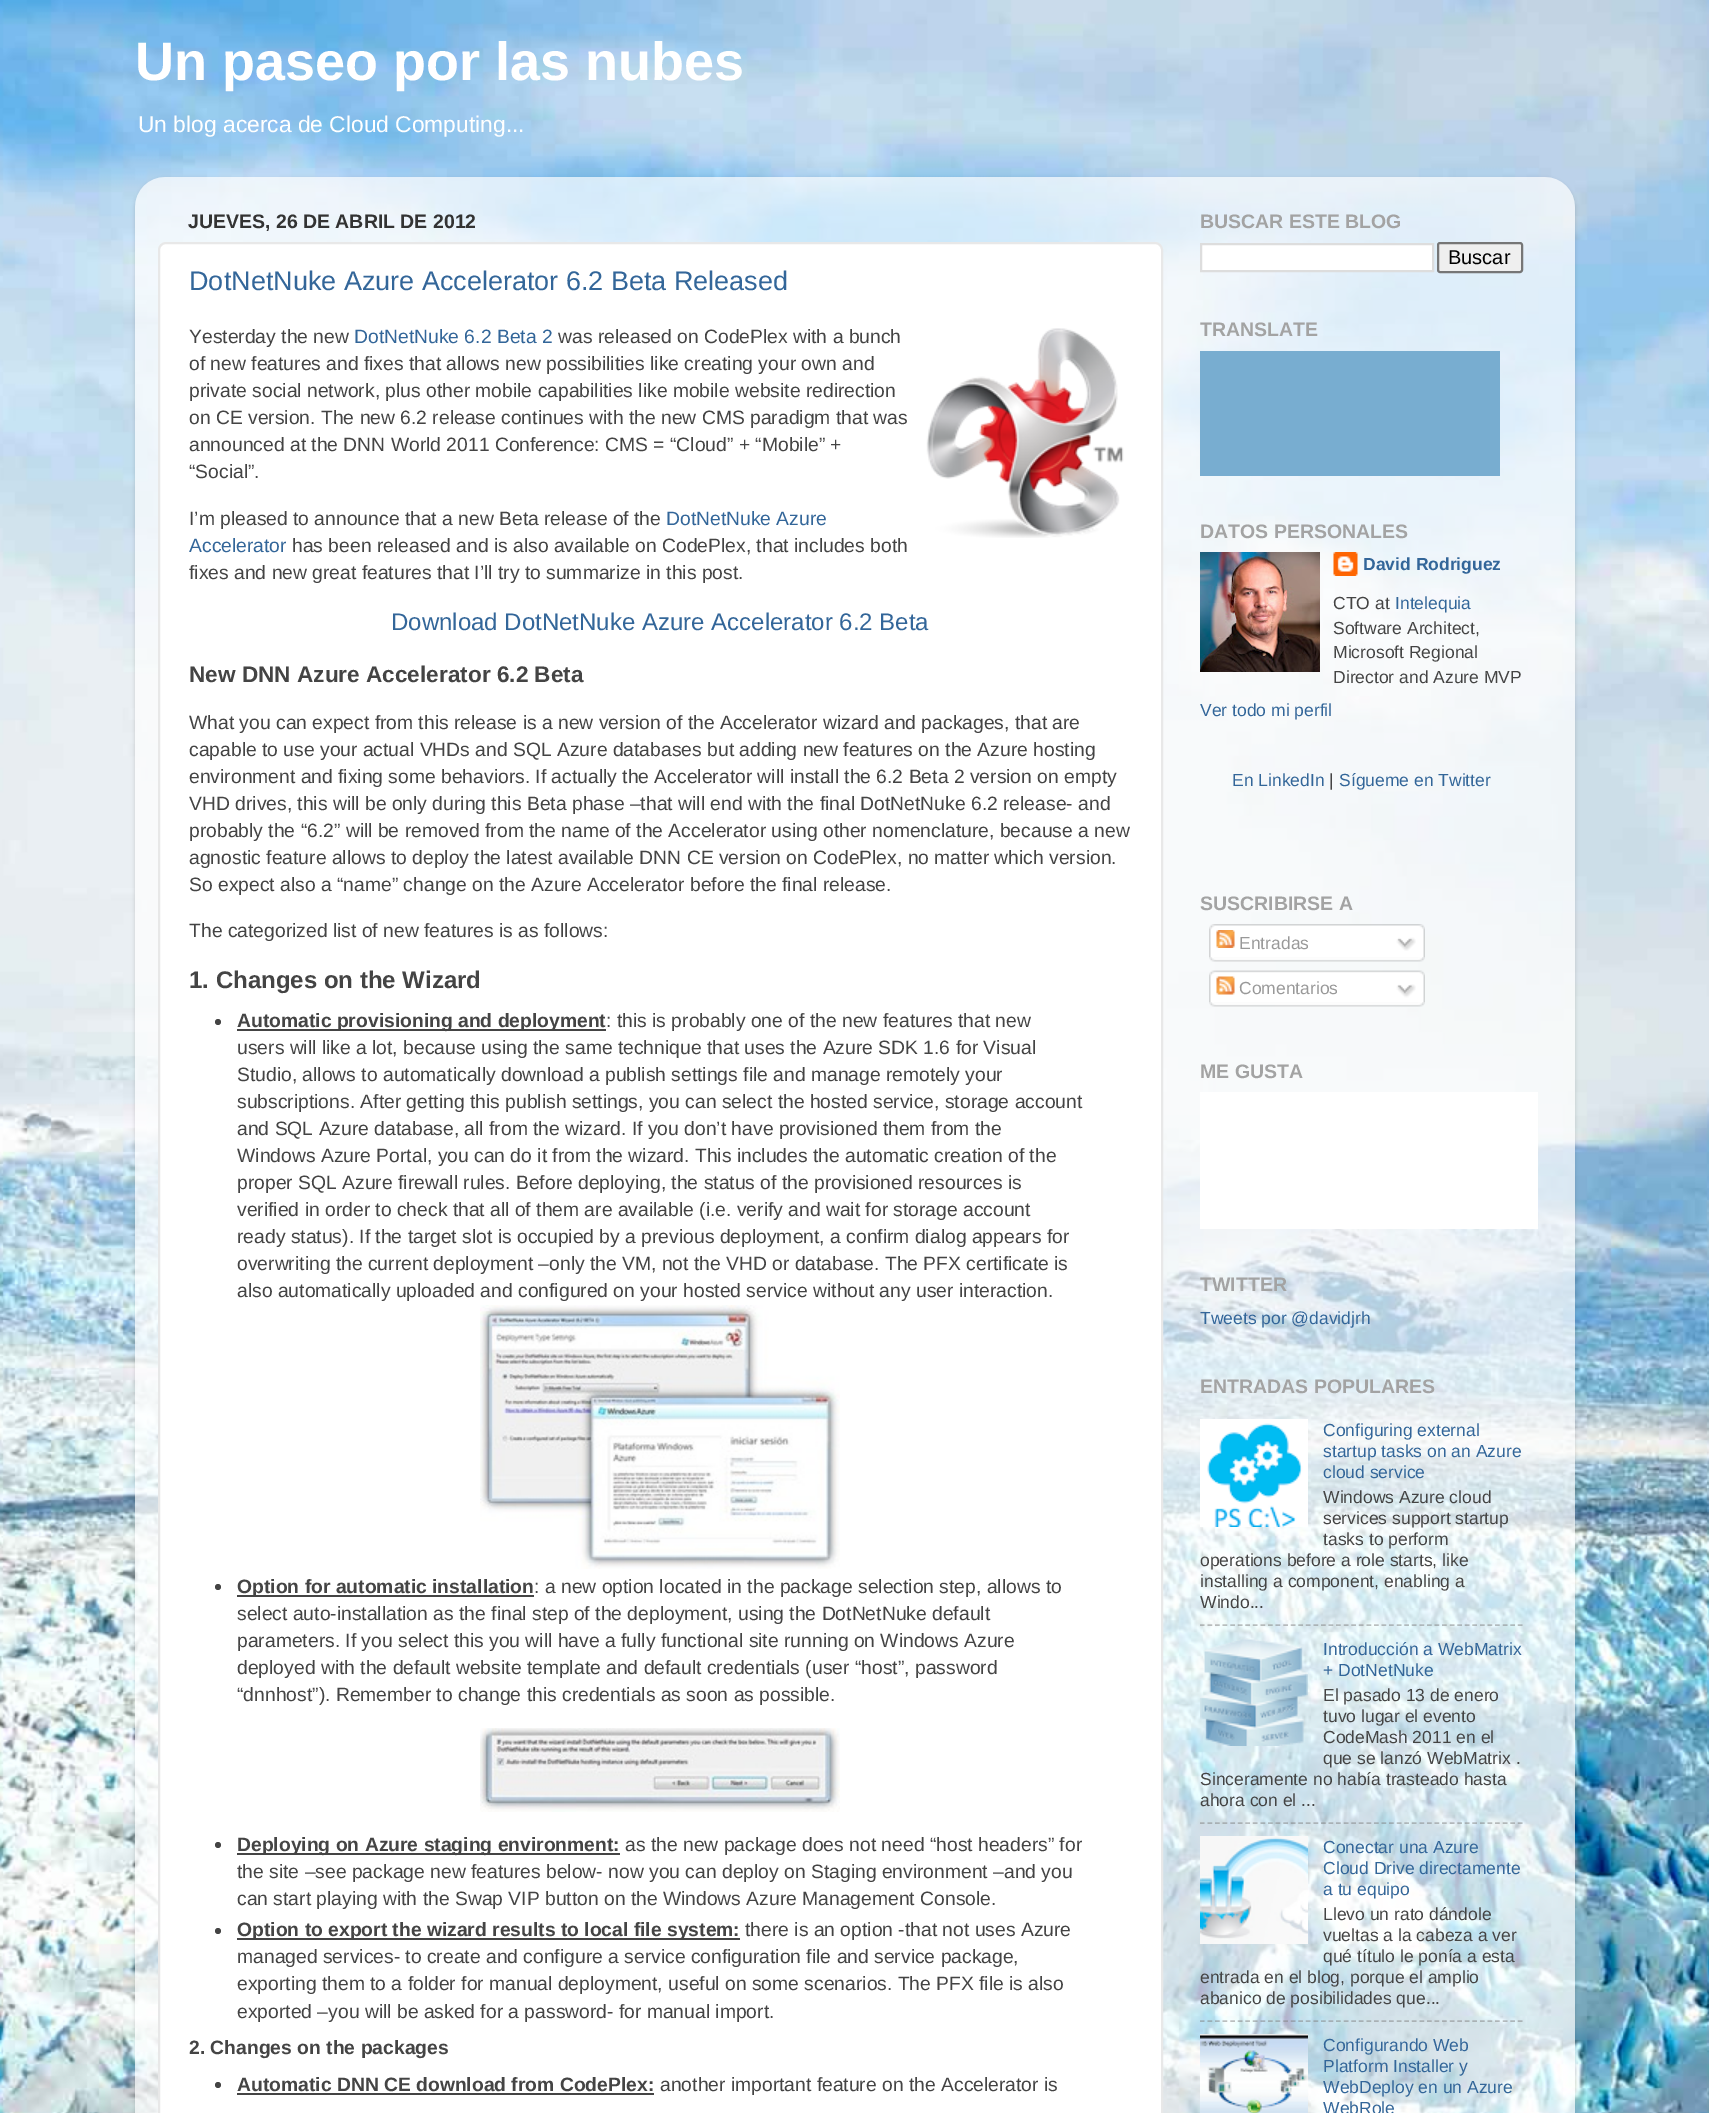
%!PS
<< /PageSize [1709 2113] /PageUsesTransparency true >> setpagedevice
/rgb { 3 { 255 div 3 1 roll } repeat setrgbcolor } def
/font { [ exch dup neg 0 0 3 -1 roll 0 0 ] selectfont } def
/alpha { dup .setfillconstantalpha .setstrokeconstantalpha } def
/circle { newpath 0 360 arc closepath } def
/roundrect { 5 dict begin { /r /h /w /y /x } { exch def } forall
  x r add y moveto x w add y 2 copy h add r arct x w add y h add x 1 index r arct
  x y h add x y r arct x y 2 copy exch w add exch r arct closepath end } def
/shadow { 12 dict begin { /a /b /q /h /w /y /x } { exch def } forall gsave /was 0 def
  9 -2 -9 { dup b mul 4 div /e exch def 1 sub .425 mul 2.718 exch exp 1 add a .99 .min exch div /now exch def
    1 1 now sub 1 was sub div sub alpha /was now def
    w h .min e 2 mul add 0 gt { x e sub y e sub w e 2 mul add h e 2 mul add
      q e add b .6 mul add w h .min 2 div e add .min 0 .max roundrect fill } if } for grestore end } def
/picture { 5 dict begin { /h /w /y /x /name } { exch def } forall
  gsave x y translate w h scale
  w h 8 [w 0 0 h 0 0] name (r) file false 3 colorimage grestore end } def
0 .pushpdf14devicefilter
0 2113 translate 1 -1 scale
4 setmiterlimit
255 255 255 rgb
0 0 1709 2113 rectfill
(img/1.rgb) 0 0 1709 2113 picture
gsave
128 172 moveto 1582 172 lineto 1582 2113 lineto 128 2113 lineto closepath 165 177 moveto 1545 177 lineto 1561.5 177 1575 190.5 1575 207 curveto 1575 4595 lineto 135 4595 lineto 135 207 lineto 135 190.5 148.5 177 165 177 curveto closepath eoclip newpath
0 0 0 rgb
135 179 1440 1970 30 2 0.15 shadow
grestore
(img/2.rgb) 135 177 1440 1936 picture
159 243 1003 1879 7 roundrect gsave fill grestore
232 232 232 rgb
2 setlinewidth
stroke
(img/3.rgb) 926 328 198 210 picture
68 68 68 rgb
218 1022 3 circle fill
237 1029 369 2 rectfill
(img/4.rgb) 480 1305 360 264 picture
218 1587 3 circle fill
237 1595 297 2 rectfill
(img/5.rgb) 480 1728 360 84 picture
218 1845 3 circle fill
237 1853 383 2 rectfill
218 1931 3 circle fill
237 1938 503 2 rectfill
218 2085 3 circle fill
237 2093 417 2 rectfill
255 255 255 rgb
1201 244 moveto 1433 244 lineto 1433 271 lineto 1201 271 lineto closepath gsave fill grestore
221 221 221 rgb
stroke
239 239 239 rgb
1438 243 84 29 2 roundrect gsave fill grestore
118 118 118 rgb
stroke
120 173 208 rgb
1200 351 300 125 rectfill
(img/6.rgb) 1200 552 120 120 picture
(img/7.rgb) 1333 552 25 24 picture
(img/8.rgb) 1209 924 216 33 picture
(img/9.rgb) 1216 930 19 18 picture
(img/10.rgb) 1396 937 20 14 picture
(img/11.rgb) 1209 957 216 5 picture
(img/12.rgb) 1209 970 216 32 picture
(img/13.rgb) 1216 976 19 19 picture
(img/14.rgb) 1396 984 20 14 picture
(img/15.rgb) 1209 1002 216 5 picture
255 255 255 rgb
1200 1092 338 137 rectfill
(img/16.rgb) 1200 1419 108 108 picture
0.5 alpha
128 128 128 rgb
1.5 setlinewidth
[4.5 3.07] 0 setdash
1200 1625 moveto 1522.5 1625 lineto stroke
1 alpha
(img/17.rgb) 1200 1638 108 108 picture
0.5 alpha
1200 1823 moveto 1522.5 1823 lineto stroke
1 alpha
(img/18.rgb) 1200 1836 108 108 picture
0.5 alpha
1200 2021 moveto 1522.5 2021 lineto stroke
1 alpha
(img/19.rgb) 1200 2034 108 79 picture
/LiberationSans-Bold 54 font
255 255 255 rgb
135 80 moveto (Un paseo por las nubes) show
/LiberationSans-Regular 22.8 font
138 132 moveto (Un blog acerca de Cloud Computing...) show
/LiberationSans-Bold 19.5 font
51 51 51 rgb
188 228 moveto (JUEVES, 26 DE ABRIL DE 2012) show
/LiberationSans-Regular 27 font
51 102 153 rgb
189 290 moveto (DotNetNuke Azure Accelerator 6.2 Beta Released) show
/LiberationSans-Regular 19.3 font
68 68 68 rgb
189 343 moveto (Yesterday the new) show
51 102 153 rgb
354 343 moveto (DotNetNuke 6.2 Beta 2) show
68 68 68 rgb
[
  [(was released on CodePlex with a bunch) 558 343]
  [(of new features and fixes that allows new possibilities like creating your own and) 189 370]
  [(private social network, plus other mobile capabilities like mobile website redirection) 189 397]
  [(on CE version. The new 6.2 release continues with the new CMS paradigm that was) 189 424]
  [(announced at the DNN World 2011 Conference: CMS = “Cloud” + “Mobile” +) 189 451]
  [(“Social”.) 189 478]
  [(I’m pleased to announce that a new Beta release of the) 189 525]
] { aload pop moveto show } forall
51 102 153 rgb
666 525 moveto (DotNetNuke Azure) show
189 552 moveto (Accelerator) show
68 68 68 rgb
292 552 moveto (has been released and is also available on CodePlex, that includes both) show
189 579 moveto (fixes and new great features that I’ll try to summarize in this post.) show
/LiberationSans-Regular 24 font
51 102 153 rgb
391 630 moveto (Download DotNetNuke Azure Accelerator 6.2 Beta) show
/LiberationSans-Bold 22.6 font
68 68 68 rgb
189 682 moveto (New DNN Azure Accelerator 6.2 Beta) show
/LiberationSans-Regular 19.3 font
[
  [(What you can expect from this release is a new version of the Accelerator wizard and packages, that are) 189 729]
  [(capable to use your actual VHDs and SQL Azure databases but adding new features on the Azure hosting) 189 756]
  [(environment and fixing some behaviors. If actually the Accelerator will install the 6.2 Beta 2 version on empty) 189 783]
  [(VHD drives, this will be only during this Beta phase –that will end with the final DotNetNuke 6.2 release- and) 189 810]
  [(probably the “6.2” will be removed from the name of the Accelerator using other nomenclature, because a new) 189 837]
  [(agnostic feature allows to deploy the latest available DNN CE version on CodePlex, no matter which version.) 189 864]
  [(So expect also a “name” change on the Azure Accelerator before the final release.) 189 891]
  [(The categorized list of new features is as follows:) 189 937]
] { aload pop moveto show } forall
/LiberationSans-Bold 24 font
189 988 moveto (1. Changes on the Wizard) show
/LiberationSans-Bold 19.3 font
237 1027 moveto (Automatic provisioning and deployment) show
/LiberationSans-Regular 19.3 font
[
  [(: this is probably one of the new features that new) 606 1027]
  [(users will like a lot, because using the same technique that uses the Azure SDK 1.6 for Visual) 237 1054]
  [(Studio, allows to automatically download a publish settings file and manage remotely your) 237 1081]
  [(subscriptions. After getting this publish settings, you can select the hosted service, storage account) 237 1108]
  [(and SQL Azure database, all from the wizard. If you don’t have provisioned them from the) 237 1135]
  [(Windows Azure Portal, you can do it from the wizard. This includes the automatic creation of the) 237 1162]
  [(proper SQL Azure firewall rules. Before deploying, the status of the provisioned resources is) 237 1189]
  [(verified in order to check that all of them are available \(i.e. verify and wait for storage account) 237 1216]
  [(ready status\). If the target slot is occupied by a previous deployment, a confirm dialog appears for) 237 1243]
  [(overwriting the current deployment –only the VM, not the VHD or database. The PFX certificate is) 237 1270]
  [(also automatically uploaded and configured on your hosted service without any user interaction.) 237 1297]
] { aload pop moveto show } forall
/LiberationSans-Bold 19.3 font
237 1593 moveto (Option for automatic installation) show
/LiberationSans-Regular 19.3 font
[
  [(: a new option located in the package selection step, allows to) 534 1593]
  [(select auto-installation as the final step of the deployment, using the DotNetNuke default) 237 1620]
  [(parameters. If you select this you will have a fully functional site running on Windows Azure) 237 1647]
  [(deployed with the default website template and default credentials \(user “host”, password) 237 1674]
  [(“dnnhost”\). Remember to change this credentials as soon as possible.) 237 1701]
] { aload pop moveto show } forall
/LiberationSans-Bold 19.3 font
237 1851 moveto (Deploying on Azure staging environment:) show
/LiberationSans-Regular 19.3 font
[
  [(as the new package does not need “host headers” for) 625 1851]
  [(the site –see package new features below- now you can deploy on Staging environment –and you) 237 1878]
  [(can start playing with the Swap VIP button on the Windows Azure Management Console.) 237 1905]
] { aload pop moveto show } forall
/LiberationSans-Bold 19.3 font
237 1936 moveto (Option to export the wizard results to local file system:) show
/LiberationSans-Regular 19.3 font
[
  [(there is an option -that not uses Azure) 745 1936]
  [(managed services- to create and configure a service configuration file and service package,) 237 1963]
  [(exporting them to a folder for manual deployment, useful on some scenarios. The PFX file is also) 237 1990]
  [(exported –you will be asked for a password- for manual import.) 237 2018]
] { aload pop moveto show } forall
/LiberationSans-Bold 19.3 font
189 2054 moveto (2. Changes on the packages) show
237 2091 moveto (Automatic DNN CE download from CodePlex:) show
/LiberationSans-Regular 19.3 font
660 2091 moveto (another important feature on the Accelerator is) show
/LiberationSans-Bold 19.5 font
163 163 163 rgb
1200 228 moveto (BUSCAR ESTE BLOG) show
/LiberationSans-Regular 20 font
0 0 0 rgb
1448 264 moveto (Buscar) show
/LiberationSans-Bold 19.5 font
163 163 163 rgb
1200 336 moveto (TRANSLATE) show
1200 538 moveto (DATOS PERSONALES) show
/LiberationSans-Bold 17.5 font
51 102 153 rgb
1363 570 moveto (David Rodriguez) show
/LiberationSans-Regular 17.5 font
68 68 68 rgb
1333 609 moveto (CTO at) show
51 102 153 rgb
1395 609 moveto (Intelequia) show
68 68 68 rgb
[
  [(Software Architect,) 1333 634]
  [(Microsoft Regional) 1333 658]
  [(Director and Azure MVP) 1333 683]
] { aload pop moveto show } forall
51 102 153 rgb
1200 716 moveto (Ver todo mi perfil) show
1232 786 moveto (En LinkedIn) show
68 68 68 rgb
1329 786 moveto (|) show
51 102 153 rgb
1339 786 moveto (Sígueme en Twitter) show
/LiberationSans-Bold 19.5 font
163 163 163 rgb
1200 910 moveto (SUSCRIBIRSE A) show
/LiberationSans-Regular 17.5 font
153 153 153 rgb
1239 949 moveto (Entradas) show
1239 994 moveto (Comentarios) show
/LiberationSans-Bold 19.5 font
163 163 163 rgb
1200 1078 moveto (ME GUSTA) show
1200 1291 moveto (TWITTER) show
/LiberationSans-Regular 17.5 font
51 102 153 rgb
1200 1324 moveto (Tweets por @davidjrh) show
/LiberationSans-Bold 19.5 font
163 163 163 rgb
1200 1393 moveto (ENTRADAS POPULARES) show
/LiberationSans-Regular 17.5 font
51 102 153 rgb
[
  [(Configuring external) 1323 1436]
  [(startup tasks on an Azure) 1323 1457]
  [(cloud service) 1323 1478]
] { aload pop moveto show } forall
68 68 68 rgb
[
  [(Windows Azure cloud) 1323 1503]
  [(services support startup) 1323 1524]
  [(tasks to perform) 1323 1545]
  [(operations before a role starts, like) 1200 1566]
  [(installing a component, enabling a) 1200 1587]
  [(Windo...) 1200 1608]
] { aload pop moveto show } forall
51 102 153 rgb
1323 1655 moveto (Introducción a WebMatrix) show
1323 1676 moveto (+ DotNetNuke) show
68 68 68 rgb
[
  [(El pasado 13 de enero) 1323 1701]
  [(tuvo lugar el evento) 1323 1722]
  [(CodeMash 2011 en el) 1323 1743]
  [(que se lanzó WebMatrix .) 1323 1764]
  [(Sinceramente no había trasteado hasta) 1200 1785]
  [(ahora con el ...) 1200 1806]
] { aload pop moveto show } forall
51 102 153 rgb
[
  [(Conectar una Azure) 1323 1853]
  [(Cloud Drive directamente) 1323 1874]
  [(a tu equipo) 1323 1895]
] { aload pop moveto show } forall
68 68 68 rgb
[
  [(Llevo un rato dándole) 1323 1920]
  [(vueltas a la cabeza a ver) 1323 1941]
  [(qué título le ponía a esta) 1323 1962]
  [(entrada en el blog, porque el amplio) 1200 1983]
  [(abanico de posibilidades que...) 1200 2004]
] { aload pop moveto show } forall
51 102 153 rgb
[
  [(Configurando Web) 1323 2051]
  [(Platform Installer y) 1323 2072]
  [(WebDeploy en un Azure) 1323 2093]
  [(WebRole) 1323 2114]
] { aload pop moveto show } forall
.poppdf14devicefilter showpage
